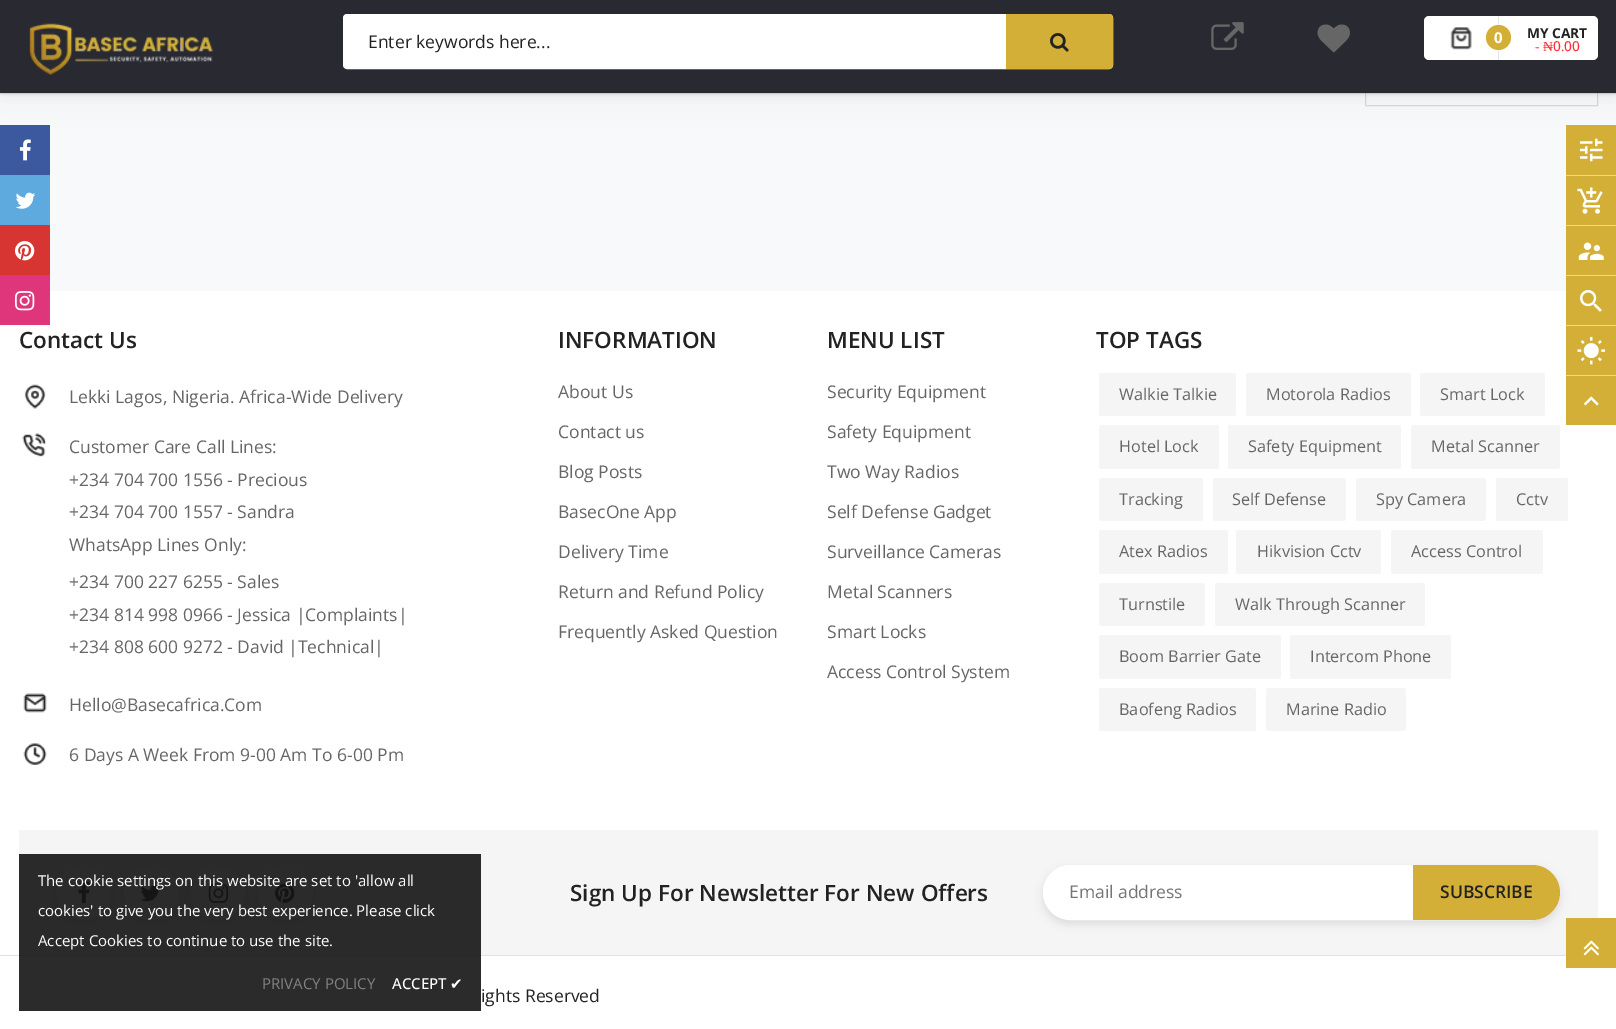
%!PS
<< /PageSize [1616 1029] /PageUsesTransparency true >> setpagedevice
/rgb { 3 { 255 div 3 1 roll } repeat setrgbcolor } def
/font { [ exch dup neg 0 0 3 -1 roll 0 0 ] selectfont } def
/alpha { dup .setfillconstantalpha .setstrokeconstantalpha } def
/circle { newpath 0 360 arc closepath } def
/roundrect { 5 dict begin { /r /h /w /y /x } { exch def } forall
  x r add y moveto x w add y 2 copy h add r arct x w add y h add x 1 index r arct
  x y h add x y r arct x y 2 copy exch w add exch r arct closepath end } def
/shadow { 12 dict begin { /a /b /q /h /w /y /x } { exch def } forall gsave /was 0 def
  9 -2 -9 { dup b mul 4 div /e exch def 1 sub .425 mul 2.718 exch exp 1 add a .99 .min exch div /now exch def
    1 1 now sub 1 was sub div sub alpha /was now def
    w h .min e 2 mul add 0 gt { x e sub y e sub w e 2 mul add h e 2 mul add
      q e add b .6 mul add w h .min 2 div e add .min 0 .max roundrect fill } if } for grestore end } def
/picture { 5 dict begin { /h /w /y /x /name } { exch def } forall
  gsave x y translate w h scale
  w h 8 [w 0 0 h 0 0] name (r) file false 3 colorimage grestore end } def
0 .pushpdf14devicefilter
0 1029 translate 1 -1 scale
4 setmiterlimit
248 249 250 rgb
0 0 1616 1029 rectfill
215 215 215 rgb
1365.5 -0.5 232 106 rectstroke
12 13 14 rgb
0 1 1616 93 0 2 0.1 shadow
0.1 alpha
[
  [0 93 1616 1 12 13 14]
] { aload pop rgb rectfill } forall
1 alpha
[
  [0 125 50 50 60 89 159]
  [1566 125 50 50 212 175 55]
] { aload pop rgb rectfill } forall
(img/10.rgb) 1580 138 23 24 picture
0 0 0 rgb
1 0 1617 93 0 15 0.07 shadow
41 41 49 rgb
0 0 1616 93 rectfill
(img/1.rgb) 29 23 184 53 picture
255 255 255 rgb
344 15 767 53 2.5 roundrect fill
343.5 14.5 769 54 3.5 roundrect stroke
212 175 55 rgb
1006 14 moveto 1109 14 lineto 1111 14 1113 16 1113 18 curveto 1113 65 lineto 1113 67 1111 69 1109 69 curveto 1006 69 lineto closepath fill
(img/2.rgb) 1050 33 19 19 picture
(img/3.rgb) 1211 22 33 28 picture
(img/4.rgb) 1317 24 33 29 picture
255 255 255 rgb
1424 16 174 44 5 roundrect fill
(img/5.rgb) 1450 27 22 23 picture
229 229 229 rgb
1498 16 1 44 rectfill
212 175 55 rgb
1498.5 37.5 12.5 circle fill
(img/6.rgb) 19 139 12 22 picture
94 169 221 rgb
0 175 50 50 rectfill
(img/7.rgb) 15 192 21 17 picture
215 53 50 rgb
0 225 50 50 rectfill
(img/8.rgb) 15 241 20 20 picture
255 255 255 rgb
0 291 1616 664 rectfill
223 53 122 rgb
0 275 50 50 rectfill
(img/9.rgb) 15 291 20 20 picture
212 175 55 rgb
1566 176 50 49 rectfill
234 215 155 rgb
1566 175 50 1 rectfill
(img/11.rgb) 1577 187 26 27 picture
212 175 55 rgb
1566 226 50 49 rectfill
234 215 155 rgb
1566 225 50 1 rectfill
(img/12.rgb) 1578 242 26 18 picture
212 175 55 rgb
1566 276 50 49 rectfill
234 215 155 rgb
1566 275 50 1 rectfill
(img/13.rgb) 1580 290 22 22 picture
212 175 55 rgb
1566 326 50 49 rectfill
234 215 155 rgb
1566 325 50 1 rectfill
(img/14.rgb) 1577 336 28 29 picture
212 175 55 rgb
1566 376 50 49 rectfill
234 215 155 rgb
1566 375 50 1 rectfill
(img/15.rgb) 1583 396 16 10 picture
(img/16.rgb) 24 384 22 25 picture
(img/17.rgb) 22 433 24 24 picture
(img/18.rgb) 23 693 24 20 picture
(img/19.rgb) 23 743 24 22 picture
245 245 245 rgb
1099 373 137 43 2.5 roundrect fill
1246 373 165 43 2.5 roundrect fill
1420 373 125 43 2.5 roundrect fill
1099 425 120 44 2.5 roundrect fill
1228 425 173 44 2.5 roundrect fill
1411 425 149 44 2.5 roundrect fill
1099 478 104 43 2.5 roundrect fill
1213 478 133 43 2.5 roundrect fill
1356 478 130 43 2.5 roundrect fill
1496 478 72 43 2.5 roundrect fill
1099 530 129 44 2.5 roundrect fill
1236 530 145 44 2.5 roundrect fill
1391 530 152 44 2.5 roundrect fill
1099 583 106 43 2.5 roundrect fill
1215 583 210 43 2.5 roundrect fill
1099 635 182 44 2.5 roundrect fill
1290 635 161 44 2.5 roundrect fill
1099 688 157 43 2.5 roundrect fill
1266 688 140 43 2.5 roundrect fill
19 830 1579 125 rectfill
0 0 0 rgb
56 869 55 55 27.5 4.5 0.1 shadow
255 255 255 rgb
83.5 892.5 27.5 circle fill
(img/20.rgb) 78 882 12 21 picture
0 0 0 rgb
124 869 55 55 27.5 4.5 0.1 shadow
255 255 255 rgb
151.5 892.5 27.5 circle fill
(img/21.rgb) 140 885 21 17 picture
0 0 0 rgb
190 869 55 55 27.5 4.5 0.1 shadow
255 255 255 rgb
217.5 892.5 27.5 circle fill
(img/22.rgb) 208 883 21 20 picture
0 0 0 rgb
258 869 55 55 27.5 4.5 0.1 shadow
255 255 255 rgb
285.5 892.5 27.5 circle fill
(img/23.rgb) 275 883 20 20 picture
0 0 0 rgb
1043 869 517 55 27.5 4.5 0.1 shadow
255 255 255 rgb
1043.5 865.5 516 54 27 roundrect gsave fill grestore
stroke
212 175 55 rgb
1413 865 moveto 1532.5 865 lineto 1547.5 865 1560 877.5 1560 892.5 curveto 1560 907.5 1547.5 920 1532.5 920 curveto 1413 920 lineto closepath fill
255 255 255 rgb
0 956 1616 73 rectfill
212 175 55 rgb
1566 918 50 50 rectfill
(img/24.rgb) 1583 940 16 16 picture
222 226 230 rgb
0 955 1566 1 rectfill
0.9 alpha
20 20 20 rgb
19 854 462 157 rectfill
/OpenSans-Regular 17.5 font
1 alpha
34 34 34 rgb
368 48 moveto (Enter keywords here...) show
/OpenSans-Bold 15 font
255 255 255 rgb
1494 43 moveto (0) show
/OpenSans-Bold 13.75 font
34 34 34 rgb
1527 38 moveto (MY CART) show
/LiberationSerif-Regular 13.75 font
255 45 55 rgb
1535 51 moveto (- ₦) show
/OpenSans-Medium 13.75 font
1553 51 moveto (0 00) show
/LiberationSerif-Regular 13.75 font
1561 51 moveto (.) show
/OpenSans-SemiBold 22.5 font
34 34 34 rgb
19 348 moveto (Contact Us) show
/OpenSans-Regular 17.5 font
102 102 102 rgb
[
  [(Lekki Lagos, Nigeria. Africa-Wide Delivery) 69 403]
  [(Customer Care Call Lines:) 69 453]
  [(+234 704 700 1556 - Precious) 69 486]
  [(+234 704 700 1557 - Sandra) 69 518]
  [(WhatsApp Lines Only:) 69 551]
  [(+234 700 227 6255 - Sales) 69 588]
  [(+234 814 998 0966 - Jessica |Complaints|) 69 621]
  [(+234 808 600 9272 - David |Technical|) 69 653]
  [(Hello@Basecafrica.Com) 69 711]
  [(6 Days A Week From 9-00 Am To 6-00 Pm) 69 761]
] { aload pop moveto show } forall
/OpenSans-SemiBold 22.5 font
34 34 34 rgb
558 348 moveto (INFORMATION) show
/OpenSans-Regular 17.5 font
102 102 102 rgb
[
  [(About Us) 558 398]
  [(Contact us) 558 438]
  [(Blog Posts) 558 478]
  [(BasecOne App) 558 518]
  [(Delivery Time) 558 558]
  [(Return and Refund Policy) 558 598]
  [(Frequently Asked Question) 558 638]
] { aload pop moveto show } forall
/OpenSans-SemiBold 22.5 font
34 34 34 rgb
827 348 moveto (MENU LIST) show
/OpenSans-Regular 17.5 font
102 102 102 rgb
[
  [(Security Equipment) 827 398]
  [(Safety Equipment) 827 438]
  [(Two Way Radios) 827 478]
  [(Self Defense Gadget) 827 518]
  [(Surveillance Cameras) 827 558]
  [(Metal Scanners) 827 598]
  [(Smart Locks) 827 638]
  [(Access Control System) 827 678]
] { aload pop moveto show } forall
/OpenSans-SemiBold 22.5 font
34 34 34 rgb
1096 348 moveto (TOP TAGS) show
/OpenSans-Regular 16.25 font
102 102 102 rgb
[
  [(Walkie Talkie) 1119 400]
  [(Motorola Radios) 1266 400]
  [(Smart Lock) 1440 400]
  [(Hotel Lock) 1119 452]
  [(Safety Equipment) 1248 452]
  [(Metal Scanner) 1431 452]
  [(Tracking) 1119 505]
  [(Self Defense) 1232 505]
  [(Spy Camera) 1376 505]
  [(Cctv) 1516 505]
  [(Atex Radios) 1119 557]
  [(Hikvision Cctv) 1257 557]
  [(Access Control) 1411 557]
  [(Turnstile) 1119 610]
  [(Walk Through Scanner) 1235 610]
  [(Boom Barrier Gate) 1119 662]
  [(Intercom Phone) 1310 662]
  [(Baofeng Radios) 1119 715]
  [(Marine Radio) 1286 715]
] { aload pop moveto show } forall
/OpenSans-SemiBold 22.5 font
34 34 34 rgb
570 901 moveto (Sign Up For Newsletter For New Offers) show
/OpenSans-Regular 17.5 font
117 117 117 rgb
1069 898 moveto (Email address) show
/OpenSans-SemiBold 17.5 font
34 34 34 rgb
1440 898 moveto (SUBSCRIBE) show
/OpenSans-Regular 17.5 font
481 1002 moveto (ights Reserved) show
/OpenSans-Regular 15 font
255 255 255 rgb
[
  [(The cookie settings on this website are set to 'allow all) 38 886]
  [(cookies' to give you the very best experience. Please click) 38 916]
  [(Accept Cookies to continue to use the site.) 38 946]
] { aload pop moveto show } forall
129 129 129 rgb
262 989 moveto (PRIVACY POLICY) show
/OpenSans-Medium 15 font
255 255 255 rgb
392 989 moveto (ACCEPT) show
/DejaVuSans-Regular 15 font
450 989 moveto (✔) show
.poppdf14devicefilter showpage
